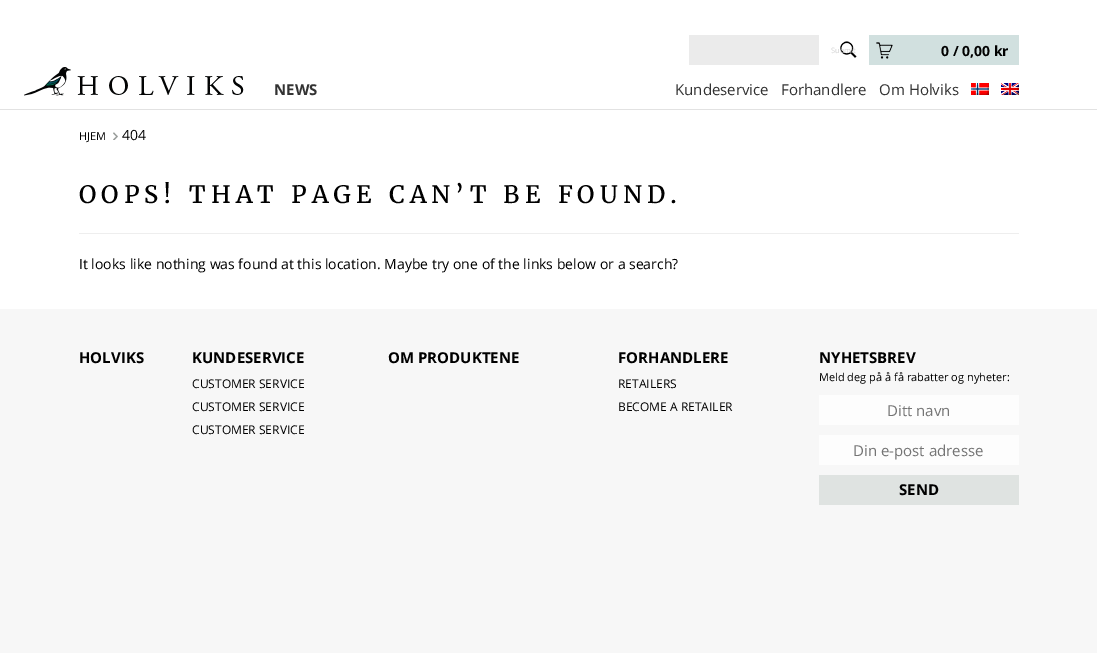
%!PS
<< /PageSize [1097 653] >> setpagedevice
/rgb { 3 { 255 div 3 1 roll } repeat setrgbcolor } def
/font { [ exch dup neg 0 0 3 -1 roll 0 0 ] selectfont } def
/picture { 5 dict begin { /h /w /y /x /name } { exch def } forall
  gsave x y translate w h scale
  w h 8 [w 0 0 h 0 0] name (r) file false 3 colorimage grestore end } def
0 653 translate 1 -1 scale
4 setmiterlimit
255 255 255 rgb
0 0 1097 653 rectfill
226 226 226 rgb
0 109 1097 1 rectfill
235 235 235 rgb
689 35 130 30 rectfill
(img/1.rgb) 840 41 17 17 picture
209 224 223 rgb
869 35 150 30 rectfill
(img/2.rgb) 876 42 17 17 picture
(img/3.rgb) 24 67 220 29 picture
(img/4.rgb) 971 83 18 12 picture
(img/5.rgb) 1001 83 18 12 picture
(img/6.rgb) 113 132 5 8 picture
[
  [79 233 940 1 238 238 238]
  [0 309 1097 344 247 247 247]
  [819 395 200 30 253 253 253]
  [819 435 200 30 253 253 253]
  [819 475 200 30 223 227 225]
] { aload pop rgb rectfill } forall
/OpenSans-Regular 7.5 font
213 213 213 rgb
831 53 moveto (Submit) show
/OpenSans-Bold 14 font
0 0 0 rgb
941 56 moveto (0 / 0,00 kr) show
/OpenSans-Bold 15 font
51 51 51 rgb
274 95 moveto (NEWS) show
/OpenSans-Regular 15 font
[
  [(Kundeservice) 675 95]
  [(Forhandlere) 781 95]
  [(Om Holviks) 879 95]
] { aload pop moveto show } forall
/OpenSans-Regular 11 font
0 0 0 rgb
79 140 moveto (HJEM) show
/OpenSans-Regular 14 font
122 140 moveto (404) show
/Merriweather-Regular 24 font
79 203 moveto 5 0 (OOPS! THAT PAGE CAN’T BE FOUND.) ashow
/OpenSans-Regular 14 font
79 269 moveto (It looks like nothing was found at this location. Maybe try one of the links below or a search?) show
/OpenSans-Bold 15 font
79 363 moveto (HOLVIKS) show
192 363 moveto (KUNDESERVICE) show
/OpenSans-Regular 12 font
[
  [(CUSTOMER SERVICE) 192 388]
  [(CUSTOMER SERVICE) 192 411]
  [(CUSTOMER SERVICE) 192 434]
] { aload pop moveto show } forall
/OpenSans-Bold 15 font
388 363 moveto (OM PRODUKTENE) show
618 363 moveto (FORHANDLERE) show
/OpenSans-Regular 12 font
618 388 moveto (RETAILERS) show
618 411 moveto (BECOME A RETAILER) show
/OpenSans-Bold 15 font
819 363 moveto (NYHETSBREV) show
/OpenSans-Regular 11 font
819 381 moveto (Meld deg på å få rabatter og nyheter:) show
/OpenSans-Regular 15 font
117 117 117 rgb
887 416 moveto (Ditt navn) show
853 456 moveto (Din e-post adresse) show
/OpenSans-Bold 15 font
0 0 0 rgb
899 495 moveto (SEND) show
showpage
